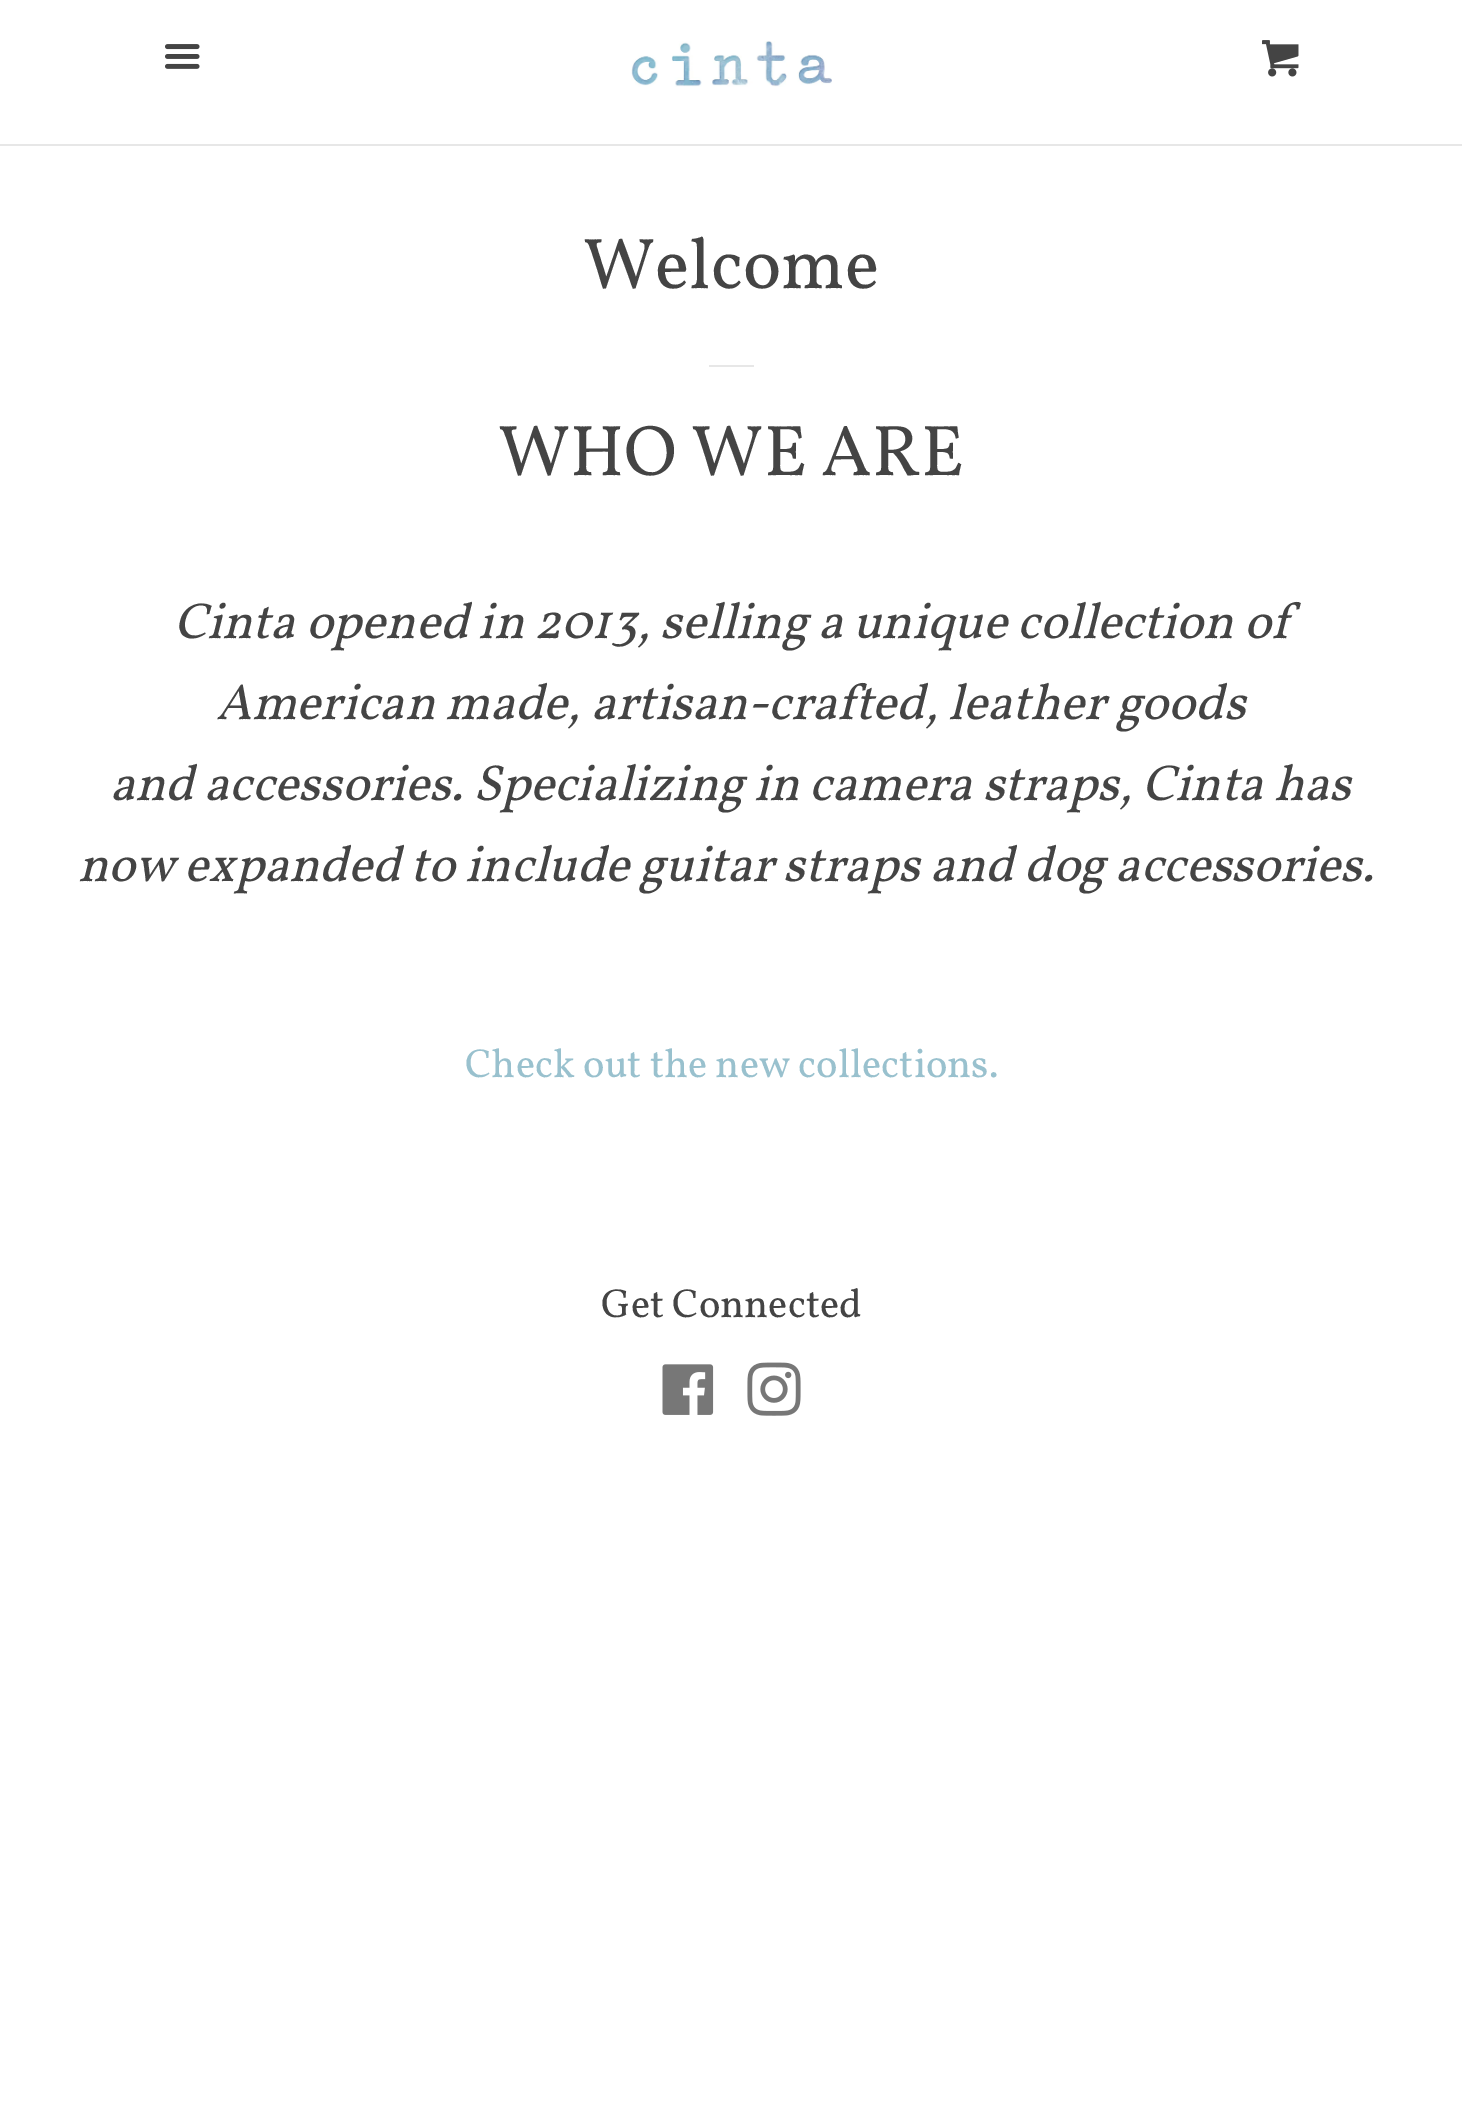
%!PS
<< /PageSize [1462 2107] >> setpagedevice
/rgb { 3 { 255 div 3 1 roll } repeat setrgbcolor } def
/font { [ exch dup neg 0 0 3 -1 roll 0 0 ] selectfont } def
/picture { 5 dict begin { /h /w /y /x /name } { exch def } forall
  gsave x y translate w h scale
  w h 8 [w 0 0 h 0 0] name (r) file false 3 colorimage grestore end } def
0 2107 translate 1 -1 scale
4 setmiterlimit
255 255 255 rgb
0 0 1462 2107 rectfill
231 231 231 rgb
0 144 1462 2 rectfill
(img/1.rgb) 165 44 35 25 picture
(img/2.rgb) 631 41 201 46 picture
(img/3.rgb) 1262 40 37 37 picture
709 365 45 2 rectfill
(img/4.rgb) 662 1364 52 51 picture
(img/5.rgb) 747 1362 54 54 picture
/Vollkorn-Regular 72 font
68 68 68 rgb
583 288 moveto (Welcome) show
498 475 moveto (WHO WE ARE) show
/Vollkorn-Italic 50.6 font
[
  [(Cinta opened in 2013, selling a unique collection of) 174 638]
  [(American made, artisan-crafted, leather goods) 216 719]
  [(and accessories. Specializing in camera straps, Cinta has) 110 800]
  [(now expanded to include guitar straps and dog accessories.) 78 881]
] { aload pop moveto show } forall
/Vollkorn-Regular 40.5 font
153 193 206 rgb
465 1077 moveto (Check out the new collections.) show
68 68 68 rgb
601 1317 moveto (Get Connected) show
showpage
